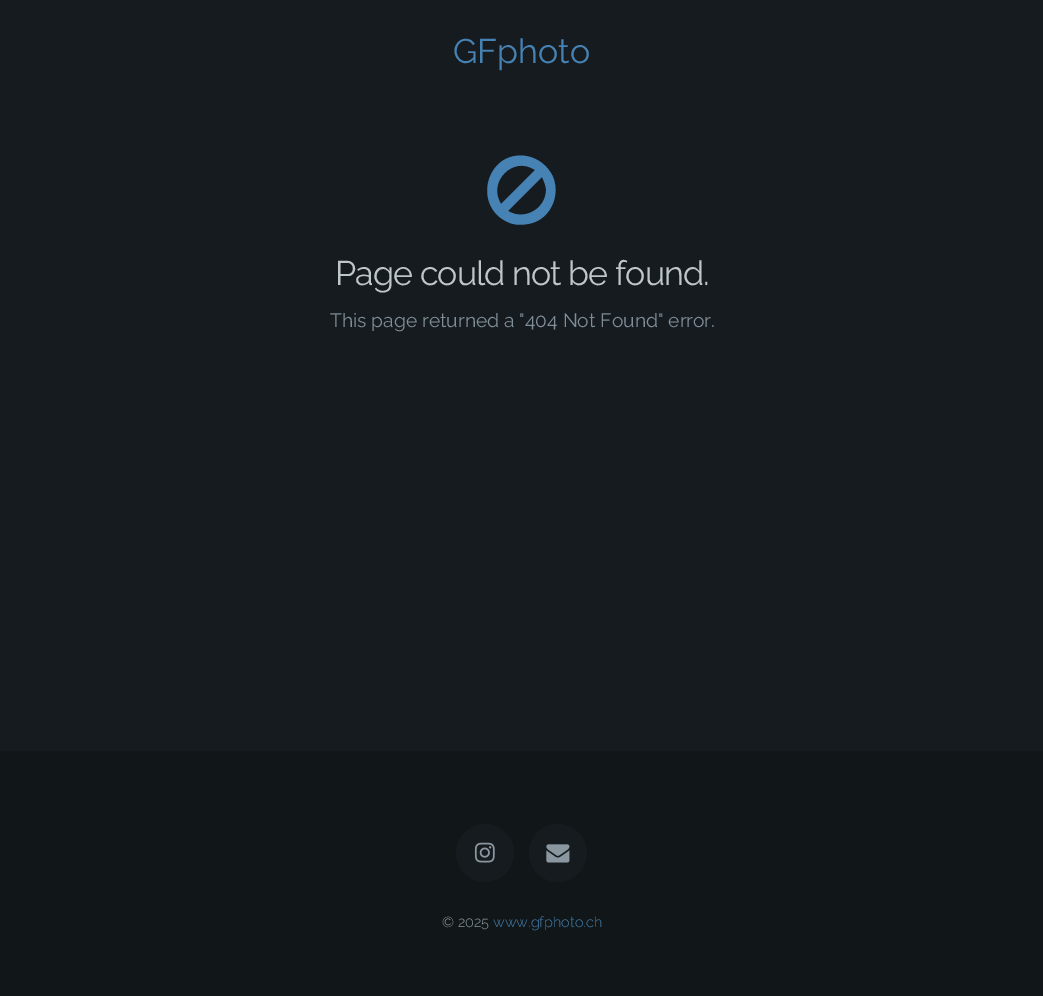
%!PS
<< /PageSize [1043 996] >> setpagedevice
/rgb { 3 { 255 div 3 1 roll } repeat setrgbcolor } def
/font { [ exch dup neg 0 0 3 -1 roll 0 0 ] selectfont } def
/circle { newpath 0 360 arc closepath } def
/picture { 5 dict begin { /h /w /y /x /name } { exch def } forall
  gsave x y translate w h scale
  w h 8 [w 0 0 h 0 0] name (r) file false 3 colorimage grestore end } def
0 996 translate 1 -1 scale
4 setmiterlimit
17 22 24 rgb
0 0 1043 996 rectfill
21 27 30 rgb
0 0 1043 751 rectfill
70 130 180 rgb
546 190 moveto 546 186 544 181 542 177 curveto 508 211 lineto 524 221 546 209 546 190 curveto closepath 501 204 moveto 535 170 lineto 513 155 487 182 501 204 curveto closepath 553 177 moveto 560 194 552 215 535 222 curveto 527 225 518 226 510 223 curveto 471 208 486 150 526 156 curveto 538 158 548 166 553 177 curveto closepath fill
21 27 30 rgb
485 853 29 circle fill
(img/1.rgb) 474 842 21 21 picture
558 853 29 circle fill
(img/2.rgb) 546 844 24 19 picture
/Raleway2-Thin 34 font
70 130 180 rgb
453 63 moveto (GFphoto) show
191 198 203 rgb
335 285 moveto -0.95 0 (Page could not be found.) ashow
/Raleway2-Thin 19.25 font
128 142 152 rgb
330 327 moveto (This page returned a "404 Not Found" error.) show
/Raleway-Thin 14.5 font
139 151 160 rgb
442 927 moveto (© 2025) show
70 130 180 rgb
493 927 moveto (www.gfphoto.ch) show
showpage
